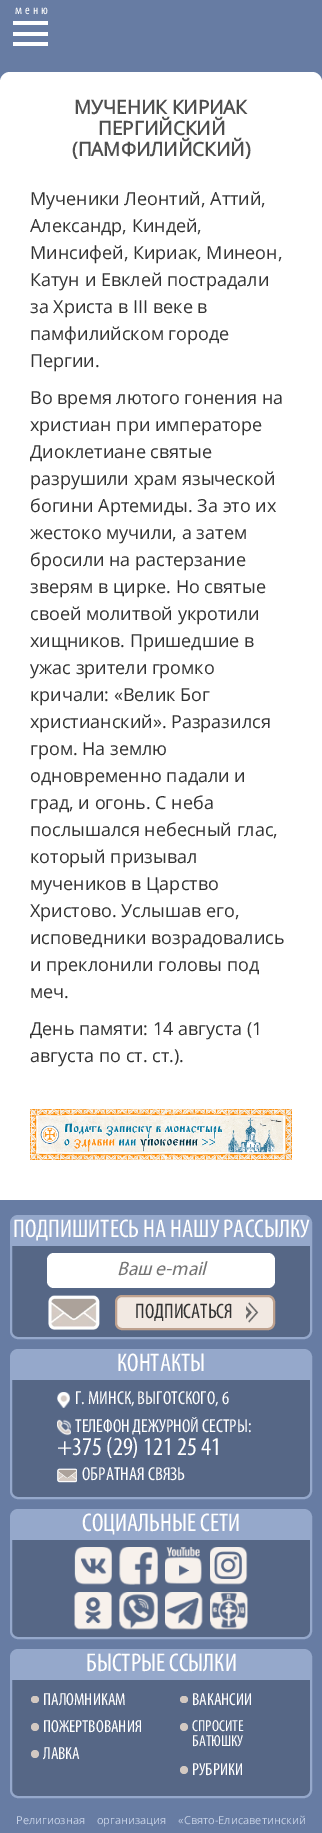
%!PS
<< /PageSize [322 1833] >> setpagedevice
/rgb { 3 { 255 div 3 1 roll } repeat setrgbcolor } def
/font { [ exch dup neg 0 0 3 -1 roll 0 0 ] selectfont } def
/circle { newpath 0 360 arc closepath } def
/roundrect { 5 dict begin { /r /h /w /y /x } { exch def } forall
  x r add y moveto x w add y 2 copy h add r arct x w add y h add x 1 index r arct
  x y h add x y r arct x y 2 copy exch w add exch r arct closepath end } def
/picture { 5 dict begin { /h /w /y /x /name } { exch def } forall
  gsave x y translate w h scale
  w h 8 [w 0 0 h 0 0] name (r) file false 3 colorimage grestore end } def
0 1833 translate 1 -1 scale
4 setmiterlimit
103 124 163 rgb
0 0 322 1833 rectfill
[
  [13 21 35 4 255 255 255]
  [13 32 35 4 255 255 255]
  [13 42 35 4 255 255 255]
] { aload pop rgb rectfill } forall
10 72 moveto 312 72 lineto 317.5 72 322 76.5 322 82 curveto 322 1200 lineto 0 1200 lineto 0 82 lineto 0 76.5 4.5 72 10 72 curveto closepath fill
(img/1.rgb) 30 1109 262 51 picture
86 103 134 rgb
11 1216 300 122 7 roundrect gsave fill grestore
149 168 203 rgb
2 setlinewidth
stroke
16 1217 moveto 306 1217 lineto 308 1217 310 1219 310 1221 curveto 310 1246 lineto 12 1246 lineto 12 1221 lineto 12 1219 14 1217 16 1217 curveto closepath fill
255 255 255 rgb
47 1253 228 35 7 roundrect fill
242 233 226 rgb
116 1296 158 33 6 roundrect gsave fill grestore
190 161 142 rgb
stroke
(img/2.rgb) 48 1295 52 35 picture
(img/3.rgb) 246 1302 13 21 picture
86 103 134 rgb
11 1350 300 148 7 roundrect gsave fill grestore
149 168 203 rgb
stroke
16 1351 moveto 306 1351 lineto 308 1351 310 1353 310 1355 curveto 310 1380 lineto 12 1380 lineto 12 1355 lineto 12 1353 14 1351 16 1351 curveto closepath fill
(img/4.rgb) 57 1392 13 16 picture
(img/5.rgb) 57 1419 14 17 picture
(img/6.rgb) 57 1468 20 15 picture
86 103 134 rgb
11 1510 300 128 7 roundrect gsave fill grestore
149 168 203 rgb
stroke
16 1511 moveto 306 1511 lineto 308 1511 310 1513 310 1515 curveto 310 1540 lineto 12 1540 lineto 12 1515 lineto 12 1513 14 1511 16 1511 curveto closepath fill
(img/7.rgb) 74 1547 38 38 picture
(img/8.rgb) 119 1547 39 38 picture
(img/9.rgb) 165 1547 37 37 picture
(img/10.rgb) 210 1547 38 38 picture
(img/11.rgb) 74 1592 38 38 picture
(img/12.rgb) 119 1592 39 38 picture
(img/13.rgb) 165 1592 38 38 picture
(img/14.rgb) 210 1592 38 38 picture
86 103 134 rgb
11 1650 300 147 7 roundrect gsave fill grestore
149 168 203 rgb
stroke
16 1651 moveto 306 1651 lineto 308 1651 310 1653 310 1655 curveto 310 1680 lineto 12 1680 lineto 12 1655 lineto 12 1653 14 1651 16 1651 curveto closepath fill
211 201 194 rgb
31 1696 8 7 3.5 roundrect fill
35 1727 4 circle fill
35 1754 4 circle fill
180 1696 8 7 3.5 roundrect fill
184 1727 4 circle fill
184 1770 4 circle fill
/Myriad-Regular 13 font
255 255 255 rgb
15 14 moveto 3 0 (меню) ashow
/OpenSans-Bold 19 font
79 79 79 rgb
[
  [(МУЧЕНИК КИРИАК) 74 114]
  [(ПЕРГИЙСКИЙ) 98 135]
  [(\(ПАМФИЛИЙСКИЙ\)) 72 156]
] { aload pop moveto show } forall
/OpenSans-Regular 18 font
51 51 51 rgb
[
  [(Мученики Леонтий, Аттий,) 30 205]
  [(Александр, Киндей,) 30 232]
  [(Минсифей, Кириак, Минеон,) 30 259]
  [(Катун и Евклей пострадали) 30 286]
  [(за Христа в III веке в) 30 313]
  [(памфилийском городе) 30 340]
  [(Пергии.) 30 367]
  [(Во время лютого гонения на) 30 404]
  [(христиан при императоре) 30 431]
  [(Диоклетиане святые) 30 458]
  [(разрушили храм языческой) 30 485]
  [(богини Артемиды. За это их) 30 512]
  [(жестоко мучили, а затем) 30 539]
  [(бросили на растерзание) 30 566]
  [(зверям в цирке. Но святые) 30 593]
  [(своей молитвой укротили) 30 620]
  [(хищников. Пришедшие в) 30 647]
  [(ужас зрители громко) 30 674]
  [(кричали: «Велик Бог) 30 701]
  [(христианский». Разразился) 30 728]
  [(гром. На землю) 30 755]
  [(одновременно падали и) 30 782]
  [(град, и огонь. С неба) 30 809]
  [(послышался небесный глас,) 30 836]
  [(который призывал) 30 863]
  [(мучеников в Царство) 30 890]
  [(Христово. Услышав его,) 30 917]
  [(исповедники возрадовались) 30 944]
  [(и преклонили головы под) 30 971]
  [(меч.) 30 998]
  [(День памяти: 14 августа \(1) 30 1035]
  [(августа по ст. ст.\).) 30 1062]
] { aload pop moveto show } forall
/Myriad-Regular 25.75 font
255 255 255 rgb
13 1237 moveto (ПОДПИШИТЕСЬ НА НАШУ РАССЫЛКУ) show
/Myriad-Italic 19.5 font
117 117 117 rgb
117 1275 moveto (Ваш e-mail) show
/Myriad-Regular 21 font
51 51 51 rgb
135 1318 moveto (ПОДПИСАТЬСЯ) show
/Myriad-Regular 25.75 font
255 255 255 rgb
117 1371 moveto (КОНТАКТЫ) show
/Myriad-Regular 18.75 font
75 1404 moveto (Г. МИНСК, ВЫГОТСКОГО, 6) show
75 1432 moveto (ТЕЛЕФОН ДЕЖУРНОЙ СЕСТРЫ:) show
/Myriad-Regular 25.75 font
57 1455 moveto (+375 \(29\) 121 25 41) show
/Myriad-Regular 18.75 font
82 1480 moveto (ОБРАТНАЯ СВЯЗЬ) show
/Myriad-Regular 25.75 font
82 1531 moveto (СОЦИАЛЬНЫЕ СЕТИ) show
86 1671 moveto (БЫСТРЫЕ ССЫЛКИ) show
/Myriad-Regular 17.5 font
[
  [(ПАЛОМНИКАМ) 43 1705]
  [(ПОЖЕРТВОВАНИЯ) 43 1732]
  [(ЛАВКА) 43 1759]
  [(ВАКАНСИИ) 192 1705]
] { aload pop moveto show } forall
/Myriad-Regular 16 font
192 1731 moveto (СПРОСИТЕ) show
192 1746 moveto (БАТЮШКУ) show
/Myriad-Regular 17.5 font
192 1775 moveto (РУБРИКИ) show
/OpenSans-Regular 11 font
198 209 230 rgb
16 1824 moveto 9 0 32 (Религиозная организация «Свято-Елисаветинский) widthshow
showpage
